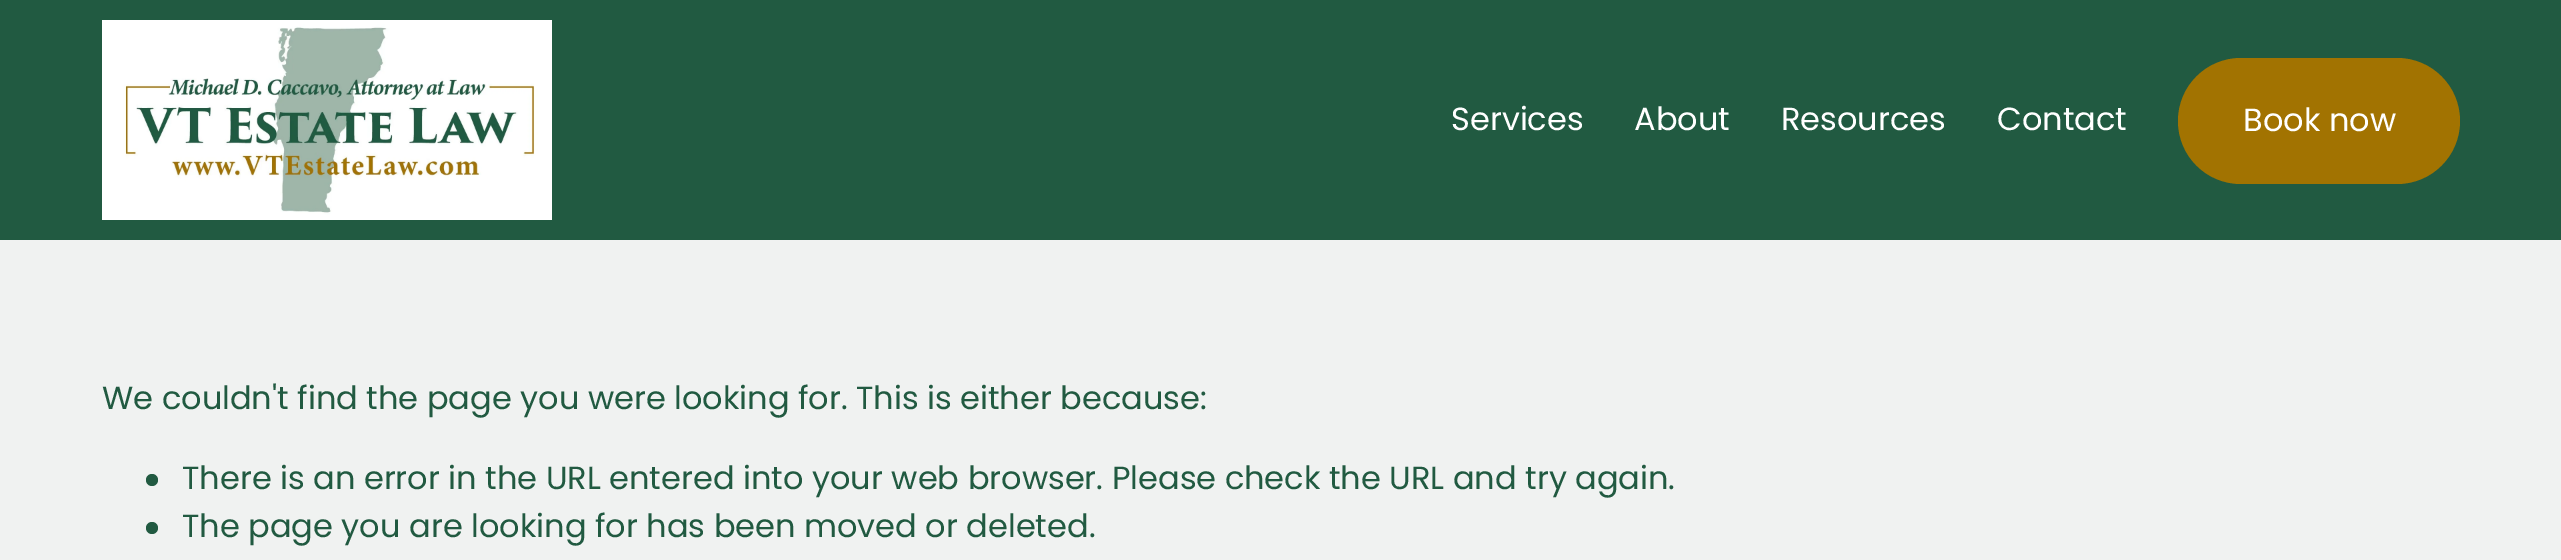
%!PS
<< /PageSize [2561 560] >> setpagedevice
/rgb { 3 { 255 div 3 1 roll } repeat setrgbcolor } def
/font { [ exch dup neg 0 0 3 -1 roll 0 0 ] selectfont } def
/circle { newpath 0 360 arc closepath } def
/roundrect { 5 dict begin { /r /h /w /y /x } { exch def } forall
  x r add y moveto x w add y 2 copy h add r arct x w add y h add x 1 index r arct
  x y h add x y r arct x y 2 copy exch w add exch r arct closepath end } def
/picture { 5 dict begin { /h /w /y /x /name } { exch def } forall
  gsave x y translate w h scale
  w h 8 [w 0 0 h 0 0] name (r) file false 3 colorimage grestore end } def
0 560 translate 1 -1 scale
4 setmiterlimit
240 242 241 rgb
0 0 2561 560 rectfill
33 90 65 rgb
0 0 2561 240 rectfill
(img/1.rgb) 102 20 450 200 picture
162 115 1 rgb
2178 58 282 126 63 roundrect fill
33 90 65 rgb
152 480 6 circle fill
152 528 6 circle fill
/Poppins-Regular 32 font
255 255 255 rgb
[
  [(Services) 1451 130]
  [(About) 1634 130]
  [(Resources) 1781 130]
  [(Contact) 1997 130]
  [(Book now) 2243 131]
] { aload pop moveto show } forall
33 90 65 rgb
[
  [(We couldn't find the page you were looking for. This is either because:) 102 409]
  [(There is an error in the URL entered into your web browser. Please check the URL and try again.) 182 489]
  [(The page you are looking for has been moved or deleted.) 182 537]
] { aload pop moveto show } forall
showpage
